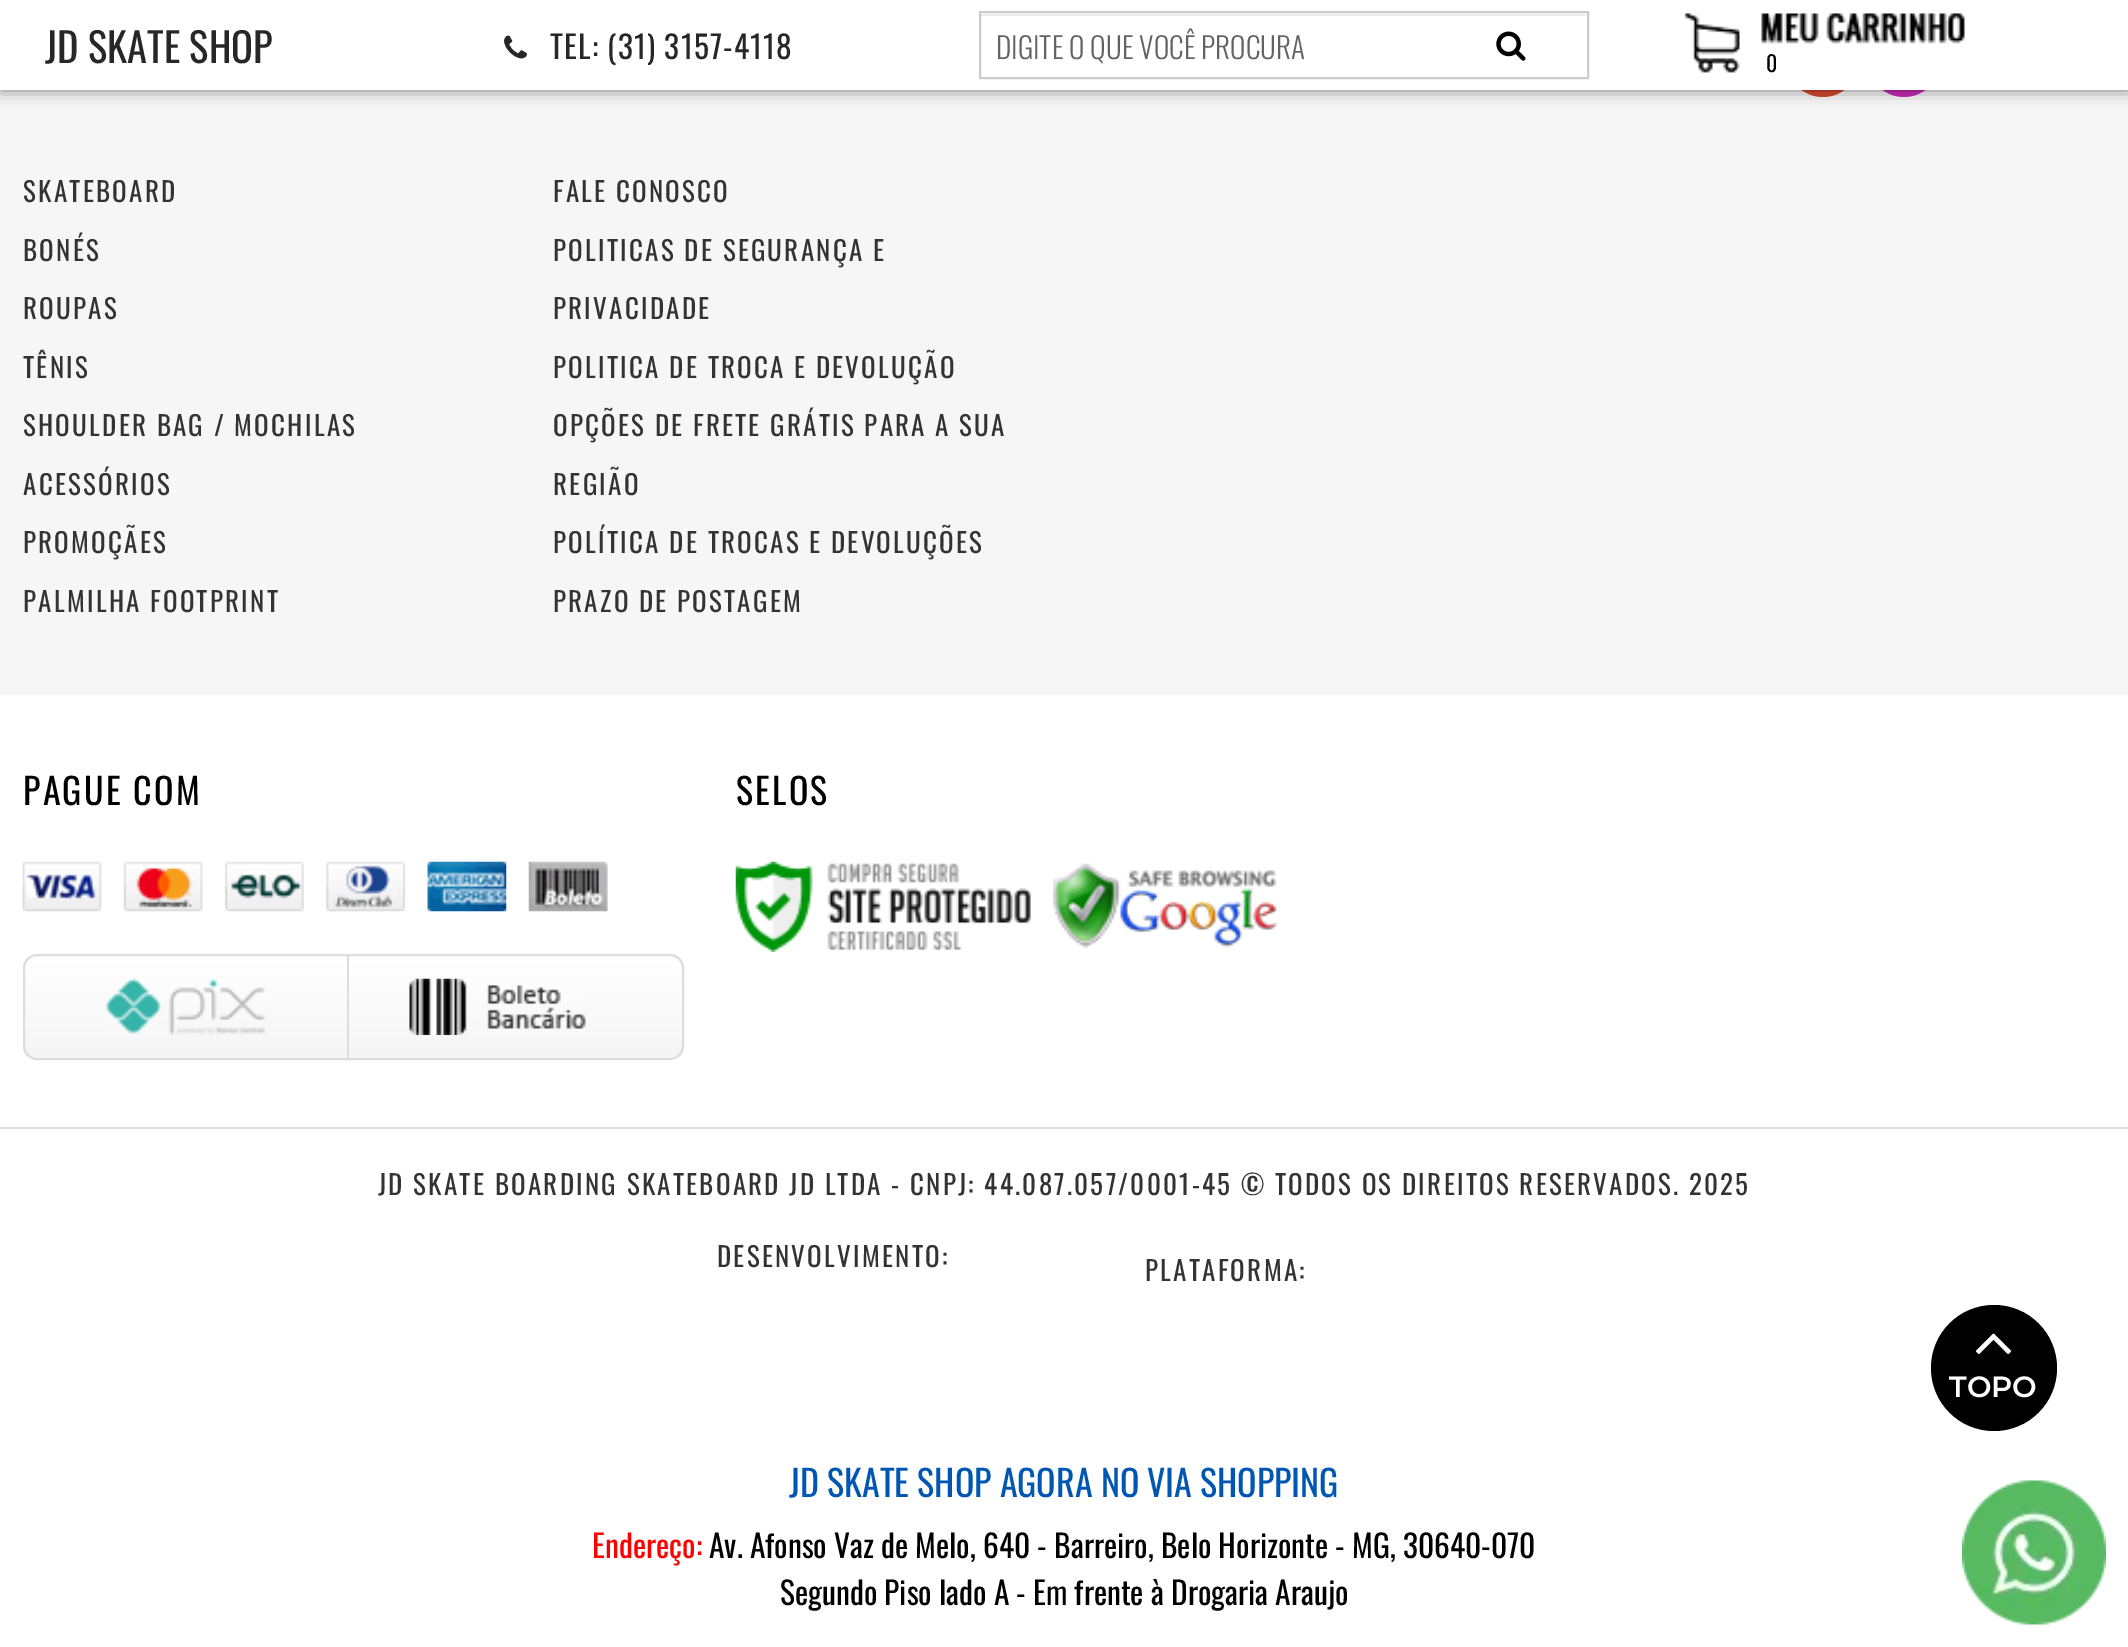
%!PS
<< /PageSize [2128 1647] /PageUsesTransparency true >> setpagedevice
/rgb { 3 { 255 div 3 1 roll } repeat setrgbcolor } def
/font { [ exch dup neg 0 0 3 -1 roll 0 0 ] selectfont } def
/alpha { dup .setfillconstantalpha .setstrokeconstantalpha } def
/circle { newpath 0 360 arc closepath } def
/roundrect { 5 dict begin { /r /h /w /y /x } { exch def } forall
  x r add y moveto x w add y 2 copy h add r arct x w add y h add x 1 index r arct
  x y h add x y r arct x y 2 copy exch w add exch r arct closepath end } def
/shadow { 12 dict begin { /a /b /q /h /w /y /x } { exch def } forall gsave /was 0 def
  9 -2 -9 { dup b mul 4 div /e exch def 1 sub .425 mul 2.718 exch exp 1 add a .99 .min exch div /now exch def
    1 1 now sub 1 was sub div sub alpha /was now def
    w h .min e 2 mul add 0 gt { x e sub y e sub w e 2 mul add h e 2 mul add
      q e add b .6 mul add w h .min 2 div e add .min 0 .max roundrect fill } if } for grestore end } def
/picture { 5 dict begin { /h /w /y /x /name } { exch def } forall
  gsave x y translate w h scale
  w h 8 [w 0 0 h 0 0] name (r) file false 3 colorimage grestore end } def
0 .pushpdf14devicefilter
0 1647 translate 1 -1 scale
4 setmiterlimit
255 255 255 rgb
0 0 2128 1647 rectfill
246 246 246 rgb
0 90 2128 605 rectfill
214 73 47 rgb
1823 61 36 circle fill
201 43 183 rgb
1904 61 36 circle fill
0 0 0 rgb
0 0 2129 90 0 8 0.5 shadow
255 255 255 rgb
0 0 2128 90 rectfill
(img/1.rgb) 504 35 23 24 picture
236 236 236 rgb
981 14 605 2 rectfill
204 204 204 rgb
2 setlinewidth
980 12 608 66 rectstroke
(img/2.rgb) 1496 31 30 30 picture
(img/3.rgb) 1684 13 281 60 picture
(img/4.rgb) 22 861 80 51 picture
(img/5.rgb) 123 861 80 51 picture
(img/6.rgb) 225 861 79 51 picture
(img/7.rgb) 326 861 79 51 picture
(img/8.rgb) 427 861 80 51 picture
(img/9.rgb) 528 861 80 51 picture
gsave
23 954 661 106 14 roundrect clip newpath
gsave 23 956 moveto 684 956 lineto 684 1058 lineto 23 1058 lineto closepath clip newpath
<< /ShadingType 2 /ColorSpace /DeviceRGB /Coords [353 956 353 1058] /Extend [true true] /Function << /FunctionType 2 /Domain [0 1] /C0 [1 1 1] /C1 [0.961 0.961 0.961] /N 1 >> >> shfill grestore
grestore
221 221 221 rgb
24 955 659 104 13 roundrect stroke
(img/10.rgb) 105 978 161 57 picture
347 956 2 102 rectfill
(img/11.rgb) 409 978 177 57 picture
(img/12.rgb) 735 861 296 91 picture
(img/13.rgb) 1053 863 225 85 picture
0 1127 2128 2 rectfill
0 0 0 rgb
1994 1368 63 circle fill
(img/14.rgb) 1976 1333 35 21 picture
(img/15.rgb) 1962 1480 144 145 picture
/Oswald-Regular 40.5 font
39 39 39 rgb
45 63 moveto (JD SKATE SHOP) show
/Oswald-Regular 31.5 font
550 59 moveto 1.1 0 (TEL: \(31\) 3157-4118) ashow
/Oswald-Light 29.25 font
98 98 98 rgb
996 59 moveto (DIGITE O QUE VOCÊ PROCURA) show
/Oswald-Regular 22 font
0 0 0 rgb
1766 72 moveto (0) show
/Oswald-Regular 27 font
51 51 51 rgb
23 202 moveto 2.25 0 (SKATEBOARD) ashow
23 261 moveto 2.25 0 (BONÉS) ashow
23 319 moveto 2.25 0 (ROUPAS) ashow
23 378 moveto 2.25 0 (TÊNIS) ashow
23 436 moveto 2.25 0 (SHOULDER BAG / MOCHILAS) ashow
23 495 moveto 2.25 0 (ACESSÓRIOS) ashow
23 553 moveto 2.25 0 (PROMOÇÃES) ashow
23 612 moveto 2.25 0 (PALMILHA FOOTPRINT) ashow
553 202 moveto 2.25 0 (FALE CONOSCO) ashow
553 261 moveto 2.25 0 (POLITICAS DE SEGURANÇA E) ashow
553 319 moveto 2.25 0 (PRIVACIDADE) ashow
553 378 moveto 2.25 0 (POLITICA DE TROCA E DEVOLUÇÃO) ashow
553 436 moveto 2.25 0 (OPÇÕES DE FRETE GRÁTIS PARA A SUA) ashow
553 495 moveto 2.25 0 (REGIÃO) ashow
553 553 moveto 2.25 0 (POLÍTICA DE TROCAS E DEVOLUÇÕES) ashow
553 612 moveto 2.25 0 (PRAZO DE POSTAGEM) ashow
/Oswald-Regular 36 font
0 0 0 rgb
23 805 moveto 2.25 0 (PAGUE COM) ashow
736 805 moveto 2.25 0 (SELOS) ashow
/Oswald-Regular 27 font
51 51 51 rgb
378 1195 moveto 2.25 0 (JD SKATE BOARDING SKATEBOARD JD LTDA - CNPJ: 44.087.057/0001-45 © TODOS OS DIREITOS RESERVADOS. 2025) ashow
717 1267 moveto 2.25 0 (DESENVOLVIMENTO:) ashow
1145 1281 moveto 2.25 0 (PLATAFORMA:) ashow
/Montserrat-SemiBold 29.25 font
255 255 255 rgb
1949 1397 moveto (TOPO) show
/Oswald-Regular 36 font
0 86 179 rgb
789 1497 moveto (JD SKATE SHOP AGORA NO VIA SHOPPING) show
/Oswald-Regular 31.5 font
255 0 0 rgb
592 1558 moveto (Endereço:) show
0 0 0 rgb
709 1558 moveto (Av. Afonso Vaz de Melo, 640 - Barreiro, Belo Horizonte - MG, 30640-070) show
780 1605 moveto (Segundo Piso lado A - Em frente à Drogaria Araujo) show
.poppdf14devicefilter showpage
